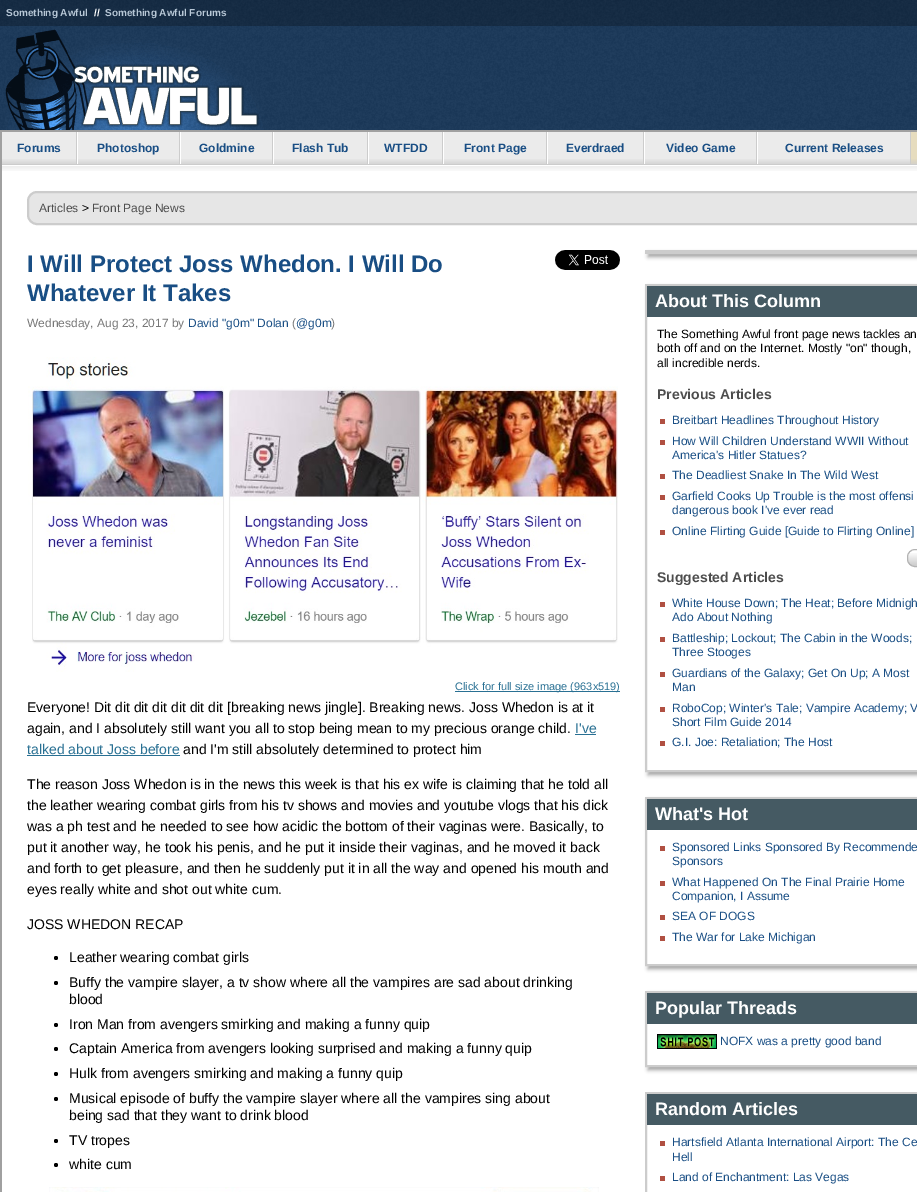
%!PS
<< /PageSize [917 1192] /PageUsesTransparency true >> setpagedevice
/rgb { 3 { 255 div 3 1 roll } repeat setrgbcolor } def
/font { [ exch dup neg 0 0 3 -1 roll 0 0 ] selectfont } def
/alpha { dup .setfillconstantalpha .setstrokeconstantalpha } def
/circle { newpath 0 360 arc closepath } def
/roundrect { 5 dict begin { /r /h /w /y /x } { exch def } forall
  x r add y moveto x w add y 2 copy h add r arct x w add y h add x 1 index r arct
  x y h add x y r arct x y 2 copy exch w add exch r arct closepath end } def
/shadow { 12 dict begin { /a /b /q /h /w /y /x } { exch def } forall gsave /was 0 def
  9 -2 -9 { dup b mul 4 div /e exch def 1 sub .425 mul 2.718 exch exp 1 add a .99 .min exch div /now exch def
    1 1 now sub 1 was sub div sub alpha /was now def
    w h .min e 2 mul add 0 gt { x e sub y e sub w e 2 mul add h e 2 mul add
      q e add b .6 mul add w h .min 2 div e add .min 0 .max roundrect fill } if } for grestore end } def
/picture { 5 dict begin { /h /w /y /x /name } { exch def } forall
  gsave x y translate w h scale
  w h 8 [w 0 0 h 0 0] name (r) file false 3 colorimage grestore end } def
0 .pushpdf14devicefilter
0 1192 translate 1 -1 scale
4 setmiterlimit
255 255 255 rgb
0 0 917 1192 rectfill
(img/1.rgb) 0 0 917 130 picture
74 66 183 59 rectfill
(img/2.rgb) 0 26 270 104 picture
[
  [0 130 917 2 160 160 160]
  [0 130 2 1062 160 160 160]
  [2 132 908 32 235 235 235]
  [2 164 915 1 204 204 204]
] { aload pop rgb rectfill } forall
(img/3.rgb) 2 159 74 5 picture
76 132 1 32 rectfill
(img/4.rgb) 78 159 101 5 picture
255 255 255 rgb
77 132 1 32 rectfill
204 204 204 rgb
179 132 1 32 rectfill
(img/5.rgb) 181 159 91 5 picture
255 255 255 rgb
180 132 1 32 rectfill
204 204 204 rgb
272 132 1 32 rectfill
(img/6.rgb) 274 159 93 5 picture
255 255 255 rgb
273 132 1 32 rectfill
204 204 204 rgb
367 132 1 32 rectfill
(img/7.rgb) 369 159 73 5 picture
255 255 255 rgb
368 132 1 32 rectfill
204 204 204 rgb
442 132 1 32 rectfill
(img/8.rgb) 444 159 102 5 picture
255 255 255 rgb
443 132 1 32 rectfill
204 204 204 rgb
546 132 1 32 rectfill
(img/9.rgb) 548 159 95 5 picture
255 255 255 rgb
547 132 1 32 rectfill
204 204 204 rgb
643 132 1 32 rectfill
(img/10.rgb) 645 159 111 5 picture
255 255 255 rgb
644 132 1 32 rectfill
204 204 204 rgb
756 132 1 32 rectfill
(img/11.rgb) 758 159 152 5 picture
[
  [757 132 1 32 255 255 255]
  [911 132 6 32 230 220 190]
  [910 132 1 32 204 204 204]
] { aload pop rgb rectfill } forall
(img/12.rgb) 911 159 6 5 picture
(img/13.rgb) 2 166 915 5 picture
230 230 230 rgb
28 192 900 32 9 roundrect gsave fill grestore
204 204 204 rgb
2 setlinewidth
stroke
(img/14.rgb) 555 250 65 20 picture
(img/15.rgb) 28 357 590 315 picture
[
  [455 691 165 1 41 112 147]
  [575 734 21 1 41 112 147]
  [27 755 153 1 41 112 147]
] { aload pop rgb rectfill } forall
0 0 0 rgb
56 958 2 circle fill
56 983 2 circle fill
56 1025 2 circle fill
56 1049 2 circle fill
56 1074 2 circle fill
56 1099 2 circle fill
56 1141 2 circle fill
56 1165 2 circle fill
(img/16.rgb) 49 1187 550 5 picture
160 160 160 rgb
648 253 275 4 0 2 1 shadow
204 204 204 rgb
645 250 272 4 rectfill
gsave
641 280 moveto 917 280 lineto 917 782 lineto 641 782 lineto closepath 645 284 moveto 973 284 lineto 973 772 lineto 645 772 lineto closepath eoclip newpath
160 160 160 rgb
648 287 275 488 0 2 1 shadow
grestore
646 285 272 486 rectstroke
[
  [647 286 270 31 69 90 99]
  [660 419 5 5 176 80 66]
  [660 440 5 5 176 80 66]
  [660 474 5 5 176 80 66]
  [660 495 5 5 176 80 66]
  [660 530 5 5 176 80 66]
] { aload pop rgb rectfill } forall
(img/17.rgb) 907 553 10 13 picture
179 179 179 rgb
1 setlinewidth
907.5 549.5 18 17 7.5 roundrect stroke
[
  [660 602 5 5 176 80 66]
  [660 637 5 5 176 80 66]
  [660 672 5 5 176 80 66]
  [660 707 5 5 176 80 66]
  [660 741 5 5 176 80 66]
] { aload pop rgb rectfill } forall
gsave
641 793 moveto 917 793 lineto 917 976 lineto 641 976 lineto closepath 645 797 moveto 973 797 lineto 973 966 lineto 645 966 lineto closepath eoclip newpath
160 160 160 rgb
648 800 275 169 0 2 1 shadow
grestore
204 204 204 rgb
2 setlinewidth
646 798 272 167 rectstroke
[
  [647 799 270 31 69 90 99]
  [660 846 5 5 176 80 66]
  [660 881 5 5 176 80 66]
  [660 915 5 5 176 80 66]
  [660 936 5 5 176 80 66]
] { aload pop rgb rectfill } forall
gsave
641 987 moveto 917 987 lineto 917 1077 lineto 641 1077 lineto closepath 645 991 moveto 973 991 lineto 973 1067 lineto 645 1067 lineto closepath eoclip newpath
160 160 160 rgb
648 994 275 76 0 2 1 shadow
grestore
204 204 204 rgb
646 992 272 74 rectstroke
69 90 99 rgb
647 993 270 31 rectfill
(img/18.rgb) 657 1034 60 15 picture
204 204 204 rgb
646 1093 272 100 rectstroke
[
  [647 1094 270 31 69 90 99]
  [660 1141 5 5 176 80 66]
  [660 1176 5 5 176 80 66]
] { aload pop rgb rectfill } forall
/LiberationSans-Bold 10 font
183 199 214 rgb
6 16 moveto (Something Awful) show
255 255 255 rgb
94 16 moveto (//) show
183 199 214 rgb
105 16 moveto (Something Awful Forums) show
/LiberationSans-Bold 12 font
25 78 132 rgb
[
  [(Forums) 17 152]
  [(Photoshop) 97 152]
  [(Goldmine) 199 152]
  [(Flash Tub) 292 152]
  [(WTFDD) 384 152]
  [(Front Page) 464 152]
  [(Everdraed) 566 152]
  [(Video Game) 666 152]
  [(Current Releases) 785 152]
] { aload pop moveto show } forall
/LiberationSans-Regular 12 font
77 77 77 rgb
39 212 moveto (Articles) show
0 0 0 rgb
82 212 moveto (>) show
77 77 77 rgb
92 212 moveto (Front Page News) show
/LiberationSans-Bold 24 font
25 78 132 rgb
27 272 moveto (I Will Protect Joss Whedon. I Will Do) show
27 301 moveto (Whatever It Takes) show
/LiberationSans-Regular 12 font
119 119 119 rgb
27 327 moveto (Wednesday, Aug 23, 2017 by) show
25 78 132 rgb
188 327 moveto (David "g0m" Dolan) show
119 119 119 rgb
292 327 moveto (\() show
25 78 132 rgb
296 327 moveto (@g0m) show
119 119 119 rgb
331 327 moveto (\)) show
/LiberationSans-Regular 11 font
41 112 147 rgb
455 690 moveto (Click for full size image \(963x519\)) show
/LiberationSans-Regular 14 font
0 0 0 rgb
27 712 moveto (Everyone! Dit dit dit dit dit dit dit [breaking news jingle]. Breaking news. Joss Whedon is at it) show
27 733 moveto (again, and I absolutely still want you all to stop being mean to my precious orange child.) show
41 112 147 rgb
575 733 moveto (I've) show
27 754 moveto (talked about Joss before) show
0 0 0 rgb
[
  [(and I'm still absolutely determined to protect him) 183 754]
  [(The reason Joss Whedon is in the news this week is that his ex wife is claiming that he told all) 27 789]
  [(the leather wearing combat girls from his tv shows and movies and youtube vlogs that his dick) 27 810]
  [(was a ph test and he needed to see how acidic the bottom of their vaginas were. Basically, to) 27 831]
  [(put it another way, he took his penis, and he put it inside their vaginas, and he moved it back) 27 852]
  [(and forth to get pleasure, and then he suddenly put it in all the way and opened his mouth and) 27 873]
  [(eyes really white and shot out white cum.) 27 894]
  [(JOSS WHEDON RECAP) 27 929]
  [(Leather wearing combat girls) 69 962]
  [(Buffy the vampire slayer, a tv show where all the vampires are sad about drinking) 69 987]
  [(blood) 69 1004]
  [(Iron Man from avengers smirking and making a funny quip) 69 1029]
  [(Captain America from avengers looking surprised and making a funny quip) 69 1053]
  [(Hulk from avengers smirking and making a funny quip) 69 1078]
  [(Musical episode of buffy the vampire slayer where all the vampires sing about) 69 1103]
  [(being sad that they want to drink blood) 69 1120]
  [(TV tropes) 69 1145]
  [(white cum) 69 1169]
] { aload pop moveto show } forall
/LiberationSans-Bold 18 font
255 255 255 rgb
655 307 moveto (About This Column) show
/LiberationSans-Regular 12 font
0 0 0 rgb
[
  [(The Something Awful front page news tackles an) 657 338]
  [(both off and on the Internet. Mostly "on" though,) 657 352]
  [(all incredible nerds.) 657 367]
] { aload pop moveto show } forall
/LiberationSans-Bold 14 font
77 77 77 rgb
657 399 moveto (Previous Articles) show
/LiberationSans-Regular 12 font
25 78 132 rgb
[
  [(Breitbart Headlines Throughout History) 672 424]
  [(How Will Children Understand WWII Without) 672 445]
  [(America's Hitler Statues?) 672 459]
  [(The Deadliest Snake In The Wild West) 672 479]
  [(Garfield Cooks Up Trouble is the most offensi) 672 500]
  [(dangerous book I've ever read) 672 514]
  [(Online Flirting Guide [Guide to Flirting Online]) 672 535]
] { aload pop moveto show } forall
/LiberationSans-Bold 14 font
77 77 77 rgb
657 582 moveto (Suggested Articles) show
/LiberationSans-Regular 12 font
25 78 132 rgb
[
  [(White House Down; The Heat; Before Midnigh) 672 607]
  [(Ado About Nothing) 672 621]
  [(Battleship; Lockout; The Cabin in the Woods;) 672 642]
  [(Three Stooges) 672 656]
  [(Guardians of the Galaxy; Get On Up; A Most) 672 677]
  [(Man) 672 691]
  [(RoboCop; Winter's Tale; Vampire Academy; V) 672 712]
  [(Short Film Guide 2014) 672 726]
  [(G.I. Joe: Retaliation; The Host) 672 746]
] { aload pop moveto show } forall
/LiberationSans-Bold 18 font
255 255 255 rgb
655 820 moveto (What's Hot) show
/LiberationSans-Regular 12 font
25 78 132 rgb
[
  [(Sponsored Links Sponsored By Recommende) 672 851]
  [(Sponsors) 672 865]
  [(What Happened On The Final Prairie Home) 672 886]
  [(Companion, I Assume) 672 900]
  [(SEA OF DOGS) 672 920]
  [(The War for Lake Michigan) 672 941]
] { aload pop moveto show } forall
/LiberationSans-Bold 18 font
255 255 255 rgb
655 1014 moveto (Popular Threads) show
/LiberationSans-Regular 12 font
25 78 132 rgb
720 1045 moveto (NOFX was a pretty good band) show
/LiberationSans-Bold 18 font
255 255 255 rgb
655 1115 moveto (Random Articles) show
/LiberationSans-Regular 12 font
25 78 132 rgb
[
  [(Hartsfield Atlanta International Airport: The Ce) 672 1146]
  [(Hell) 672 1161]
  [(Land of Enchantment: Las Vegas) 672 1181]
] { aload pop moveto show } forall
.poppdf14devicefilter showpage
